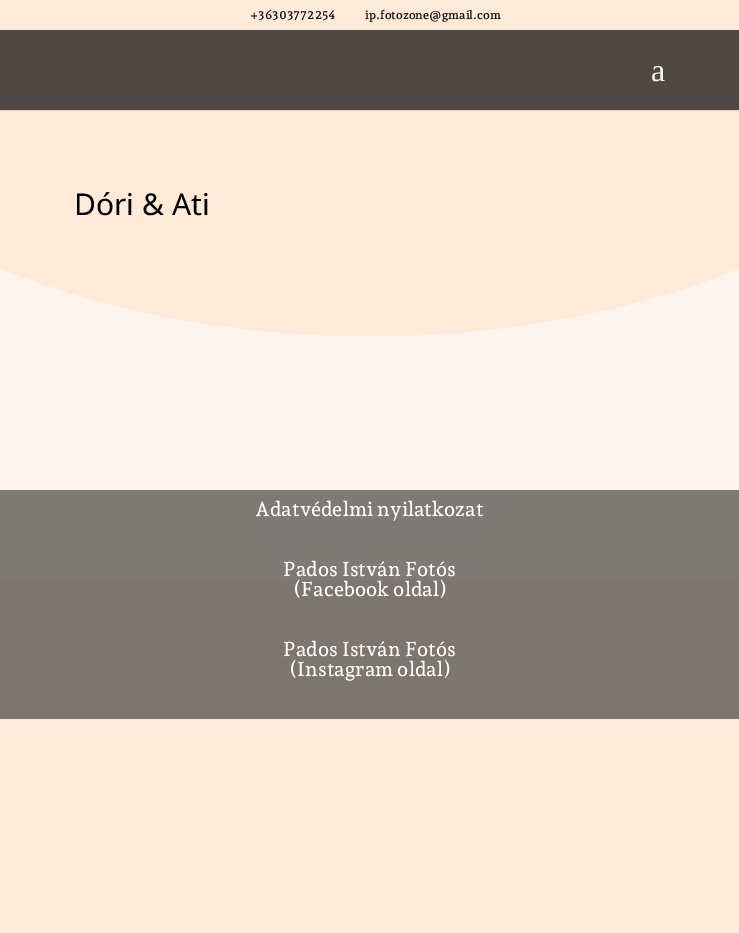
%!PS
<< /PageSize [739 933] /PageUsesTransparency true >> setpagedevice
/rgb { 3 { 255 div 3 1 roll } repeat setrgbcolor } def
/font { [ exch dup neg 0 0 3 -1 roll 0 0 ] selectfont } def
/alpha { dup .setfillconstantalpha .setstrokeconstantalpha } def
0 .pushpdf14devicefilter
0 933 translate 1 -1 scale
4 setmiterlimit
253 234 217 rgb
0 0 739 933 rectfill
228 211 195 rgb
0 110 739 1 rectfill
78 73 67 rgb
0 30 739 80 rectfill
gsave
0 80 739 500 rectclip
252 244 237 rgb
0 269 moveto 0 613 lineto 739 613 lineto 739 269 lineto 514 359 225 359 0 269 curveto closepath fill
grestore
0.5 alpha
0 0 0 rgb
0 490 739 229 rectfill
/AndadaPro-SemiBold 12 font
1 alpha
10 10 10 rgb
250 19 moveto (+36303772254) show
365 19 moveto (ip.fotozone@gmail.com) show
/LiberationSerif-Regular 32 font
252 244 237 rgb
651 81 moveto (a) show
/NotoSansOldHungarian-Regular 30 font
0 0 0 rgb
74 215 moveto (Dóri & Ati) show
/AndadaPro-Medium 20 font
255 255 255 rgb
[
  [(Adatvédelmi nyilatkozat) 255 516]
  [(Pados István Fotós) 283 576]
  [(\(Facebook oldal\)) 293 596]
  [(Pados István Fotós) 283 656]
  [(\(Instagram oldal\)) 289 676]
] { aload pop moveto show } forall
.poppdf14devicefilter showpage
